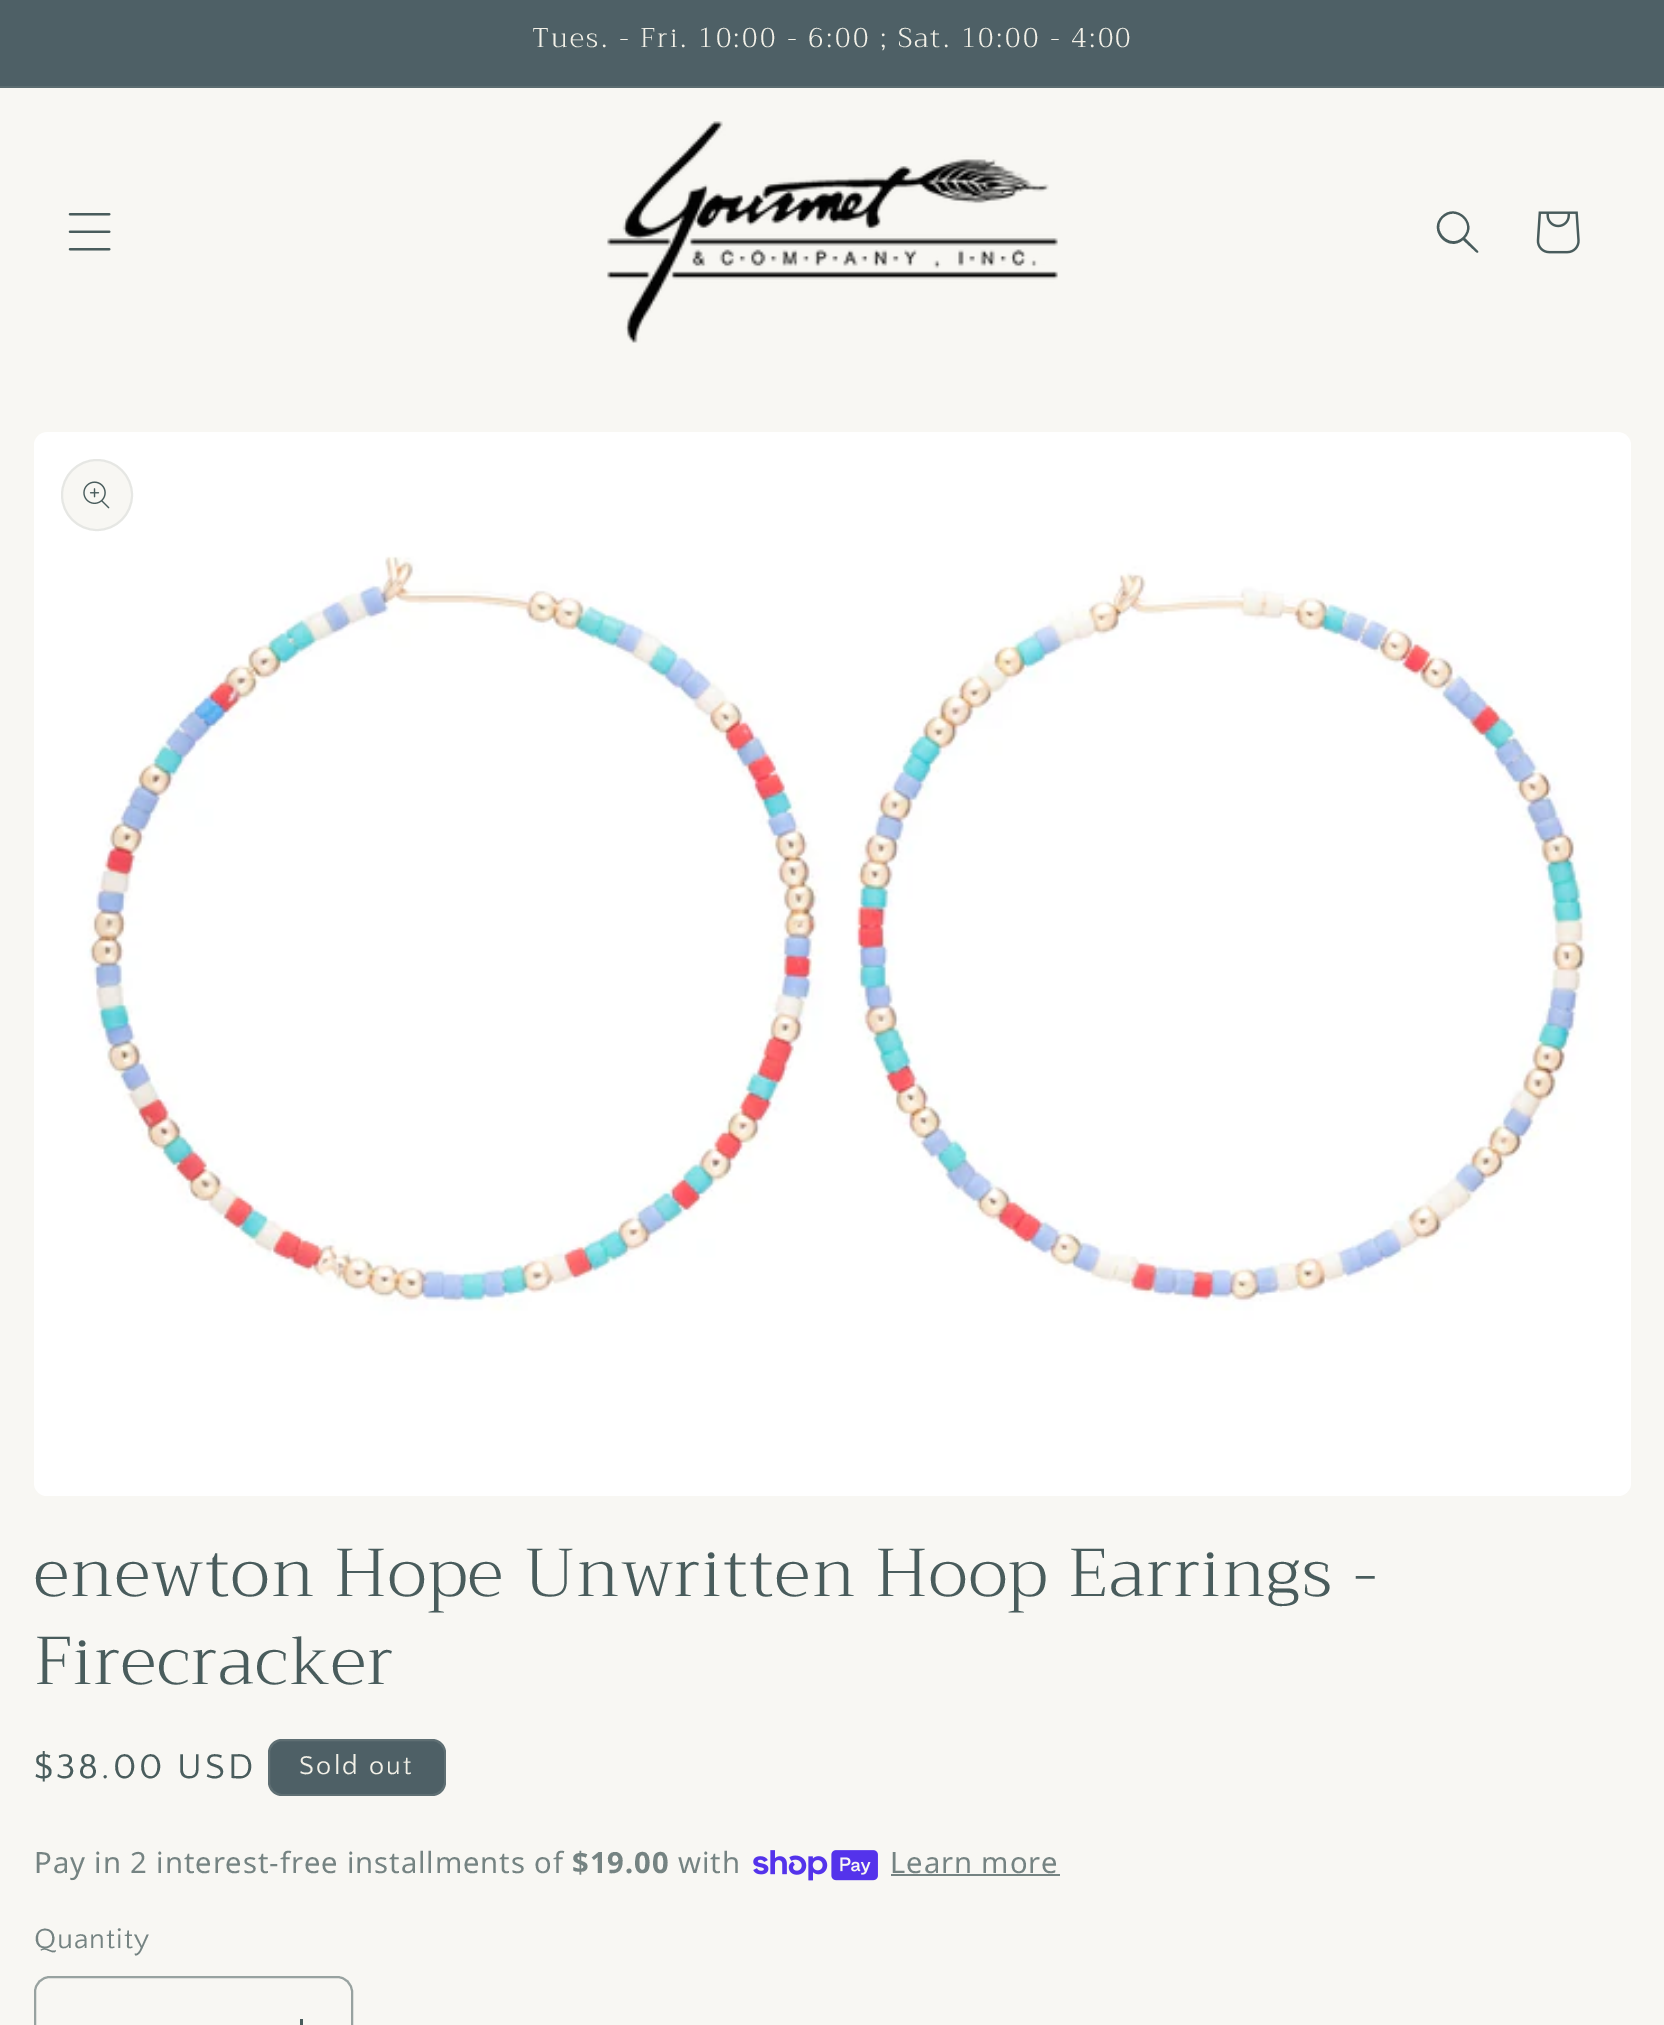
%!PS
<< /PageSize [1664 2025] /PageUsesTransparency true >> setpagedevice
/rgb { 3 { 255 div 3 1 roll } repeat setrgbcolor } def
/font { [ exch dup neg 0 0 3 -1 roll 0 0 ] selectfont } def
/alpha { dup .setfillconstantalpha .setstrokeconstantalpha } def
/circle { newpath 0 360 arc closepath } def
/roundrect { 5 dict begin { /r /h /w /y /x } { exch def } forall
  x r add y moveto x w add y 2 copy h add r arct x w add y h add x 1 index r arct
  x y h add x y r arct x y 2 copy exch w add exch r arct closepath end } def
/picture { 5 dict begin { /h /w /y /x /name } { exch def } forall
  gsave x y translate w h scale
  w h 8 [w 0 0 h 0 0] name (r) file false 3 colorimage grestore end } def
0 .pushpdf14devicefilter
0 2025 translate 1 -1 scale
4 setmiterlimit
248 247 243 rgb
0 0 1664 2025 rectfill
78 96 102 rgb
0 0 1664 86 rectfill
91 108 112 rgb
0 86 1664 2 rectfill
(img/1.rgb) 68 213 43 38 picture
(img/2.rgb) 607 121 451 222 picture
73 92 92 rgb
1463 237 moveto 1450 250 1431 230 1443 218 curveto 1456 205 1476 224 1463 237 curveto 1463 240 moveto 1448 253 1427 230 1442 216 curveto 1456 202 1479 223 1465 238 curveto 1478 251 lineto 1479 253 1477 253 1476 252 curveto closepath eofill
(img/3.rgb) 1536 211 44 43 picture
(img/4.rgb) 34 432 1597 1064 picture
248 247 243 rgb
97 495 36 circle fill
0.1 alpha
73 92 92 rgb
2 setlinewidth
97 495 35 circle stroke
1 alpha
(img/5.rgb) 83 481 27 28 picture
78 96 102 rgb
268 1739 178 57 14 roundrect fill
0.1 alpha
242 240 231 rgb
269 1740 176 55 13 roundrect stroke
1 alpha
(img/6.rgb) 753 1850 125 31 picture
117 131 130 rgb
891 1874 169 2 rectfill
73 92 92 rgb
300 2019 3 6 rectfill
152 162 160 rgb
35 1977 317 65 15 roundrect stroke
/Trirong-Light 27 font
242 240 231 rgb
532 47 moveto 2.25 0 (Tues. - Fri. 10:00 - 6:00 ; Sat. 10:00 - 4:00) ashow
/Trirong-Light 67.5 font
73 92 92 rgb
34 1596 moveto 1.35 0 (enewton Hope Unwritten Hoop Earrings -) ashow
34 1684 moveto 1.35 0 (Firecracker) ashow
/QuattrocentoSans-Regular 36 font
34 1778 moveto 3 0 ($38.00 USD) ashow
/QuattrocentoSans-Regular 27 font
242 240 231 rgb
299 1774 moveto 2.25 0 (Sold out) ashow
/NotoSans-Regular 29.25 font
117 131 130 rgb
34 1873 moveto 0.9 0 (Pay in 2 interest-free installments of) ashow
/NotoSans-Bold 29.25 font
572 1873 moveto 0.9 0 ($19.00) ashow
/NotoSans-Regular 29.25 font
678 1873 moveto 0.9 0 (with) ashow
890 1873 moveto 0.9 0 (Learn more) ashow
/QuattrocentoSans-Regular 29.25 font
34 1948 moveto 0.9 0 (Quantity) ashow
.poppdf14devicefilter showpage
